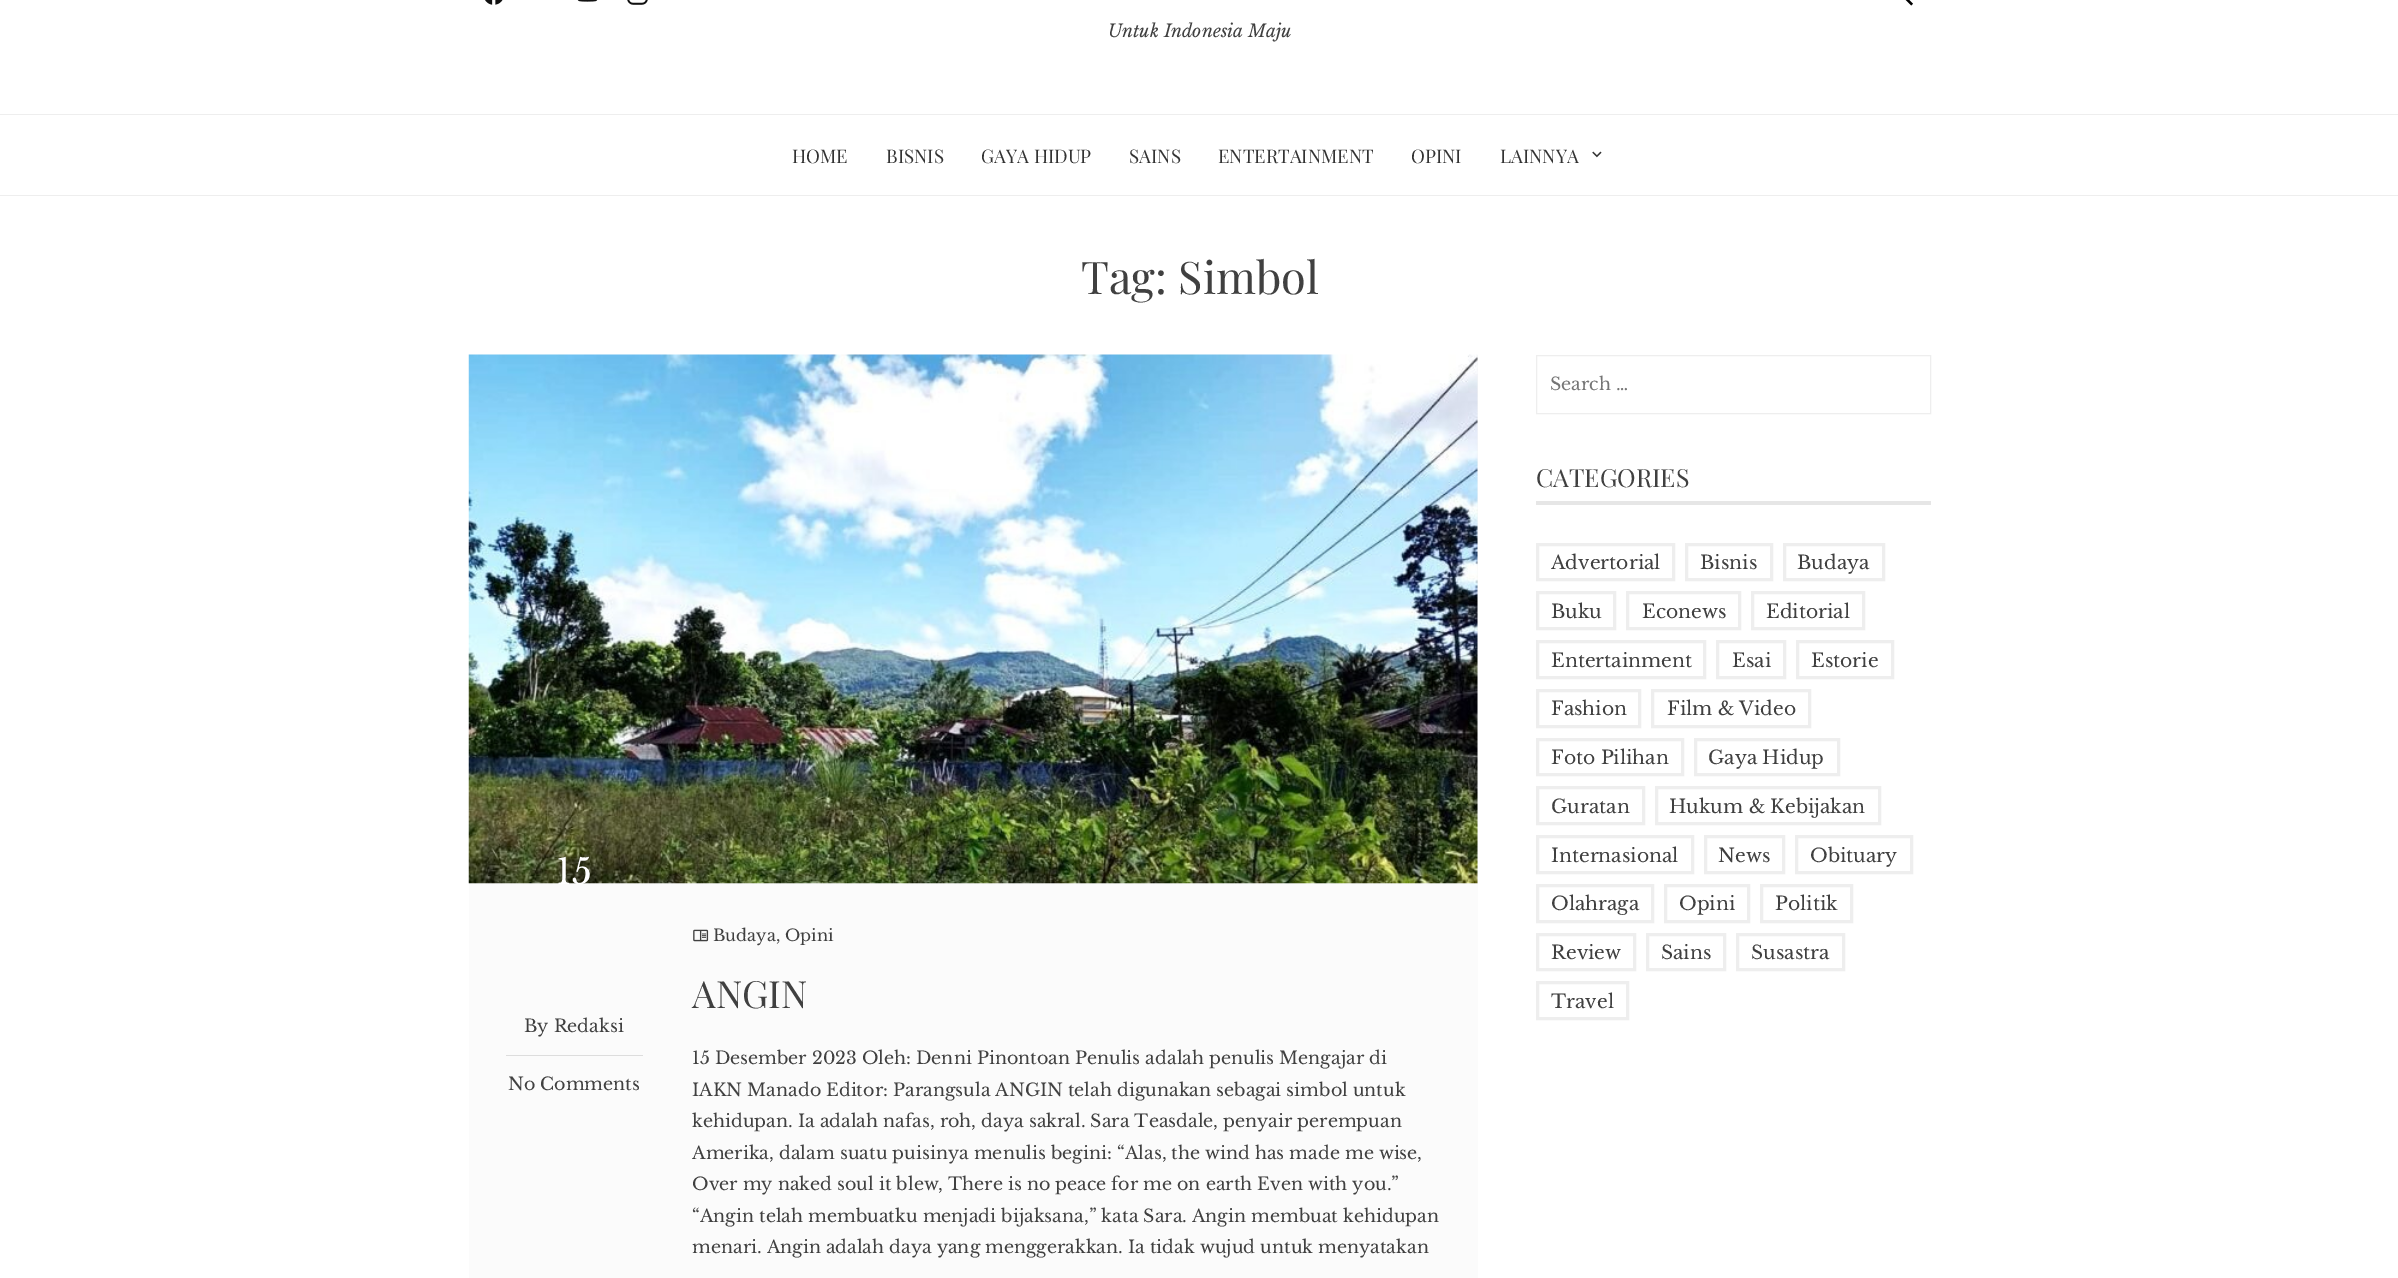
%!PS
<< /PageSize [2398 1278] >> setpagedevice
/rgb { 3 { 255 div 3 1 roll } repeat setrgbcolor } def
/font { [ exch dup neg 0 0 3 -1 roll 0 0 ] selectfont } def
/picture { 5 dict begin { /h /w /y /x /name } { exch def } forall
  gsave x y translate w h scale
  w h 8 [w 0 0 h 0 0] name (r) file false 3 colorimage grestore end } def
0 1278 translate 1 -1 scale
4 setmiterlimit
255 255 255 rgb
0 0 2398 1278 rectfill
(img/1.rgb) 485 0 18 5 picture
(img/2.rgb) 577 0 21 2 picture
(img/3.rgb) 627 0 21 5 picture
(img/4.rgb) 1905 0 8 6 picture
238 238 238 rgb
0 114 2398 1 rectfill
0 195 2398 1 rectfill
(img/5.rgb) 1592 151 10 7 picture
1536.5 355.5 394 58 rectstroke
230 230 230 rgb
1536 501 395 4 rectfill
238 238 238 rgb
3 setlinewidth
1537.5 544.5 136 35 rectstroke
1686.5 544.5 85 35 rectstroke
1784.5 544.5 99 35 rectstroke
1537.5 592.5 77 36 rectstroke
1627.5 592.5 112 36 rectstroke
1752.5 592.5 111 36 rectstroke
1537.5 641.5 167 36 rectstroke
1717.5 641.5 67 36 rectstroke
1797.5 641.5 95 36 rectstroke
1537.5 690.5 102 36 rectstroke
1652.5 690.5 157 36 rectstroke
1537.5 739.5 145 35 rectstroke
1695.5 739.5 143 35 rectstroke
1537.5 787.5 106 36 rectstroke
1656.5 787.5 223 36 rectstroke
1537.5 836.5 155 36 rectstroke
1705.5 836.5 78 36 rectstroke
1796.5 836.5 115 36 rectstroke
1537.5 885.5 115 36 rectstroke
1665.5 885.5 83 36 rectstroke
1761.5 885.5 90 36 rectstroke
1537.5 934.5 97 35 rectstroke
1647.5 934.5 77 35 rectstroke
1737.5 934.5 106 35 rectstroke
1537.5 982.5 90 36 rectstroke
246 246 246 rgb
469 355 1009 529 rectfill
(img/6.rgb) 468 354 1010 530 picture
251 251 251 rgb
469 884 1009 394 rectfill
221 221 221 rgb
506 1055 137 1 rectfill
(img/7.rgb) 693 929 16 13 picture
/LibreBaskerville-Italic 17.5 font
64 64 64 rgb
1108 37 moveto (Untuk Indonesia Maju) show
/PlayfairDisplay-Regular 18.75 font
51 51 51 rgb
[
  [(HOME) 792 163]
  [(BISNIS) 886 163]
  [(GAYA HIDUP) 981 163]
  [(SAINS) 1129 163]
  [(ENTERTAINMENT) 1218 163]
  [(OPINI) 1411 163]
  [(LAINNYA) 1500 163]
] { aload pop moveto show } forall
/PlayfairDisplay-Regular 45 font
64 64 64 rgb
1081 294 moveto (Tag: Simbol) show
/LibreBaskerville-Regular 17.5 font
117 117 117 rgb
1550 390 moveto (Search …) show
/PlayfairDisplay-Regular 25 font
64 64 64 rgb
1536 487 moveto (CATEGORIES) show
/LibreBaskerville-Regular 18.75 font
[
  [(Advertorial) 1551 569]
  [(Bisnis) 1700 569]
  [(Budaya) 1797 569]
  [(Buku) 1551 618]
  [(Econews) 1642 618]
  [(Editorial) 1766 618]
  [(Entertainment) 1551 667]
  [(Esai) 1732 667]
  [(Estorie) 1811 667]
  [(Fashion) 1551 715]
  [(Film & Video) 1667 715]
  [(Foto Pilihan) 1551 764]
  [(Gaya Hidup) 1708 764]
  [(Guratan) 1551 813]
  [(Hukum & Kebijakan) 1669 813]
  [(Internasional) 1551 862]
  [(News) 1718 862]
  [(Obituary) 1810 862]
  [(Olahraga) 1551 910]
  [(Opini) 1679 910]
  [(Politik) 1775 910]
  [(Review) 1551 959]
  [(Sains) 1661 959]
  [(Susastra) 1751 959]
  [(Travel) 1551 1008]
] { aload pop moveto show } forall
/LibreBaskerville-Regular 35 font
255 255 255 rgb
556 884 moveto (15) show
/LibreBaskerville-Regular 17.5 font
64 64 64 rgb
524 1032 moveto (By Redaksi) show
508 1090 moveto (No Comments) show
/LibreBaskerville-Regular 16.25 font
713 941 moveto (Budaya, Opini) show
/PlayfairDisplay-Regular 37.5 font
692 1008 moveto (ANGIN) show
/LibreBaskerville-Regular 17.5 font
[
  [(15 Desember 2023 Oleh: Denni Pinontoan Penulis adalah penulis Mengajar di) 692 1064]
  [(IAKN Manado Editor: Parangsula ANGIN telah digunakan sebagai simbol untuk) 692 1096]
  [(kehidupan. Ia adalah nafas, roh, daya sakral. Sara Teasdale, penyair perempuan) 692 1127]
  [(Amerika, dalam suatu puisinya menulis begini: “Alas, the wind has made me wise,) 692 1159]
  [(Over my naked soul it blew, There is no peace for me on earth Even with you.”) 692 1190]
  [(“Angin telah membuatku menjadi bijaksana,” kata Sara. Angin membuat kehidupan) 692 1222]
  [(menari. Angin adalah daya yang menggerakkan. Ia tidak wujud untuk menyatakan) 692 1253]
] { aload pop moveto show } forall
showpage
